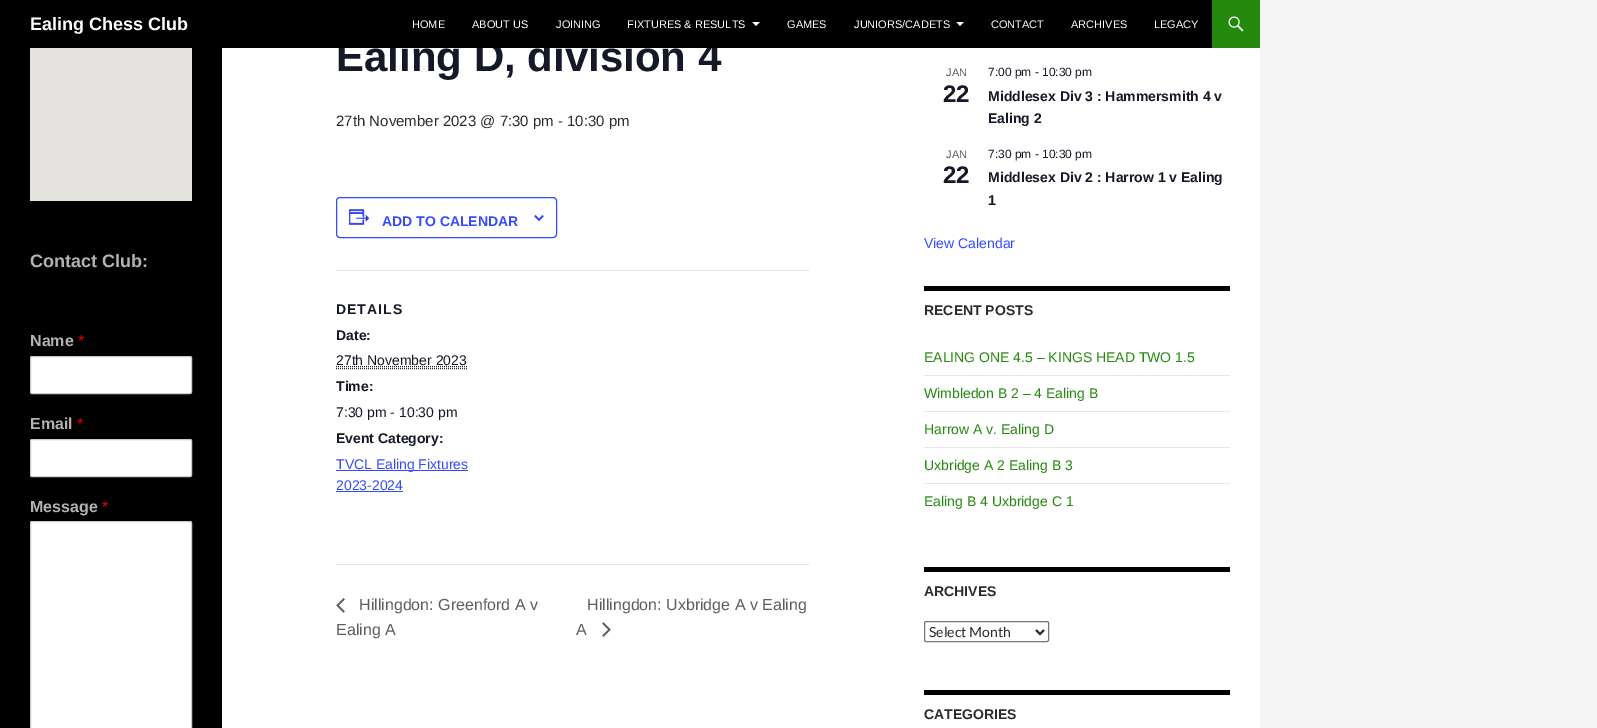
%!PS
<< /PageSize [1597 728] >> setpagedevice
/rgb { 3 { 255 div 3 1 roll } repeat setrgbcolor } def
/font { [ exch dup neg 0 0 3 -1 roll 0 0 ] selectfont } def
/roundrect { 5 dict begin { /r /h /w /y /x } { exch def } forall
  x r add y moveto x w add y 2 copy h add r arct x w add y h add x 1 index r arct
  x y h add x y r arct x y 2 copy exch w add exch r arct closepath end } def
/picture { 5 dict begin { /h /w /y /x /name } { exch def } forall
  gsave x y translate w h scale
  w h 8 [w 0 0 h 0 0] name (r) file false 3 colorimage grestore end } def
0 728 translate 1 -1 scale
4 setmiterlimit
245 245 245 rgb
0 0 1597 728 rectfill
255 255 255 rgb
222 48 1038 680 rectfill
36 137 13 rgb
1212 0 48 48 rectfill
(img/1.rgb) 1228 16 16 16 picture
0 0 0 rgb
0 48 222 680 rectfill
229 227 223 rgb
30 48 162 153 rectfill
255 255 255 rgb
30.5 356.5 161 37 1.5 roundrect gsave fill grestore
204 204 204 rgb
stroke
255 255 255 rgb
30.5 439.5 161 37 1.5 roundrect gsave fill grestore
204 204 204 rgb
stroke
255 255 255 rgb
30.5 521.5 161 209 1.5 roundrect gsave fill grestore
204 204 204 rgb
stroke
51 74 255 rgb
336.5 197.5 220 40 3.5 roundrect stroke
(img/2.rgb) 349 209 21 16 picture
(img/3.rgb) 534 215 10 6 picture
228 228 228 rgb
336 270 474 1 rectfill
43 43 43 rgb
[1 1] 0 setdash
336 368.5 moveto 467 368.5 lineto stroke
20 24 39 rgb
336 366.5 moveto 467 366.5 lineto stroke
[
  [336 470 132 1 51 74 255]
  [336 491 67 1 51 74 255]
  [336 564 474 1 228 228 228]
] { aload pop rgb rectfill } forall
(img/4.rgb) 336 598 9 15 picture
(img/5.rgb) 602 622 9 15 picture
[
  [924 286 306 5 0 0 0]
  [924 375 306 1 230 230 230]
  [924 411 306 1 230 230 230]
  [924 447 306 1 230 230 230]
  [924 483 306 1 230 230 230]
  [924 567 306 5 0 0 0]
] { aload pop rgb rectfill } forall
118 118 118 rgb
[] 0 setdash
924.5 621.5 124 20 1.5 roundrect stroke
43 43 43 rgb
2 setlinewidth
1036 630 moveto 1040 634 lineto 1044 630 lineto stroke
0 0 0 rgb
924 690 306 5 rectfill
/LiberationSans-Bold 18 font
179 179 179 rgb
30 267 moveto (Contact Club:) show
/LiberationSans-Bold 16 font
30 346 moveto (Name) show
/LiberationSans-Regular 16 font
255 0 0 rgb
78 346 moveto (*) show
/LiberationSans-Bold 16 font
179 179 179 rgb
30 429 moveto (Email) show
/LiberationSans-Regular 16 font
255 0 0 rgb
77 429 moveto (*) show
/LiberationSans-Bold 16 font
179 179 179 rgb
30 512 moveto (Message) show
/LiberationSans-Regular 16 font
255 0 0 rgb
102 512 moveto (*) show
/LiberationSans-Bold 42 font
20 24 39 rgb
336 71 moveto (Ealing D, division 4) show
0 0 0 rgb
0 0 1212 48 rectfill
/LiberationSans-Regular 11 font
255 255 255 rgb
[
  [(LEGACY) 1154 28]
  [(ARCHIVES) 1071 28]
  [(CONTACT) 991 28]
] { aload pop moveto show } forall
956.5 22 moveto 960 26 lineto 964 22 lineto closepath fill
854 28 moveto (JUNIORS/CADETS) show
787 28 moveto (GAMES) show
752.5 22 moveto 756 26 lineto 760 22 lineto closepath fill
[
  [(FIXTURES & RESULTS) 627 28]
  [(JOINING) 556 28]
  [(ABOUT US) 472 28]
  [(HOME) 412 28]
] { aload pop moveto show } forall
/LiberationSans-Bold 18 font
30 30 moveto (Ealing Chess Club) show
/LiberationSans-Regular 15 font
43 43 43 rgb
336 126 moveto (27th November 2023 @ 7:30 pm - 10:30 pm) show
/LiberationSans-Bold 14 font
51 74 255 rgb
382 226 moveto (ADD TO CALENDAR) show
20 24 39 rgb
336 314 moveto 1 0 (DETAILS) ashow
336 340 moveto (Date:) show
/LiberationSans-Regular 14 font
336 365 moveto (27th November 2023) show
/LiberationSans-Bold 14 font
336 391 moveto (Time:) show
/LiberationSans-Regular 14 font
336 417 moveto (7:30 pm - 10:30 pm) show
/LiberationSans-Bold 14 font
336 443 moveto (Event Category:) show
/LiberationSans-Regular 14 font
51 74 255 rgb
336 469 moveto (TVCL Ealing Fixtures) show
336 490 moveto (2023-2024) show
/LiberationSans-Regular 16 font
93 93 93 rgb
[
  [(Hillingdon: Greenford A v) 359 610]
  [(Ealing A) 336 635]
  [(Hillingdon: Uxbridge A v Ealing) 587 610]
  [(A) 576 635]
] { aload pop moveto show } forall
/LiberationSans-Regular 11 font
946 76 moveto (JAN) show
/LiberationSans-Bold 24 font
20 24 39 rgb
943 102 moveto (22) show
/LiberationSans-Regular 12 font
988 76 moveto (7:00 pm - 10:30 pm) show
/LiberationSans-Bold 14 font
988 101 moveto (Middlesex Div 3 : Hammersmith 4 v) show
988 123 moveto (Ealing 2) show
/LiberationSans-Regular 11 font
93 93 93 rgb
946 158 moveto (JAN) show
/LiberationSans-Bold 24 font
20 24 39 rgb
943 183 moveto (22) show
/LiberationSans-Regular 12 font
988 158 moveto (7:30 pm - 10:30 pm) show
/LiberationSans-Bold 14 font
988 182 moveto (Middlesex Div 2 : Harrow 1 v Ealing) show
988 205 moveto (1) show
/LiberationSans-Regular 14 font
51 74 255 rgb
924 248 moveto (View Calendar) show
/LiberationSans-Bold 14 font
43 43 43 rgb
924 315 moveto (RECENT POSTS) show
/LiberationSans-Regular 14 font
36 137 13 rgb
[
  [(EALING ONE 4.5 – KINGS HEAD TWO 1.5) 924 362]
  [(Wimbledon B 2 – 4 Ealing B) 924 398]
  [(Harrow A v. Ealing D) 924 434]
  [(Uxbridge A 2 Ealing B 3) 924 470]
  [(Ealing B 4 Uxbridge C 1) 924 506]
] { aload pop moveto show } forall
/LiberationSans-Bold 14 font
43 43 43 rgb
924 596 moveto (ARCHIVES) show
/Lato-Regular 14 font
929 637 moveto (Select Month) show
/LiberationSans-Bold 14 font
924 719 moveto (CATEGORIES) show
showpage
